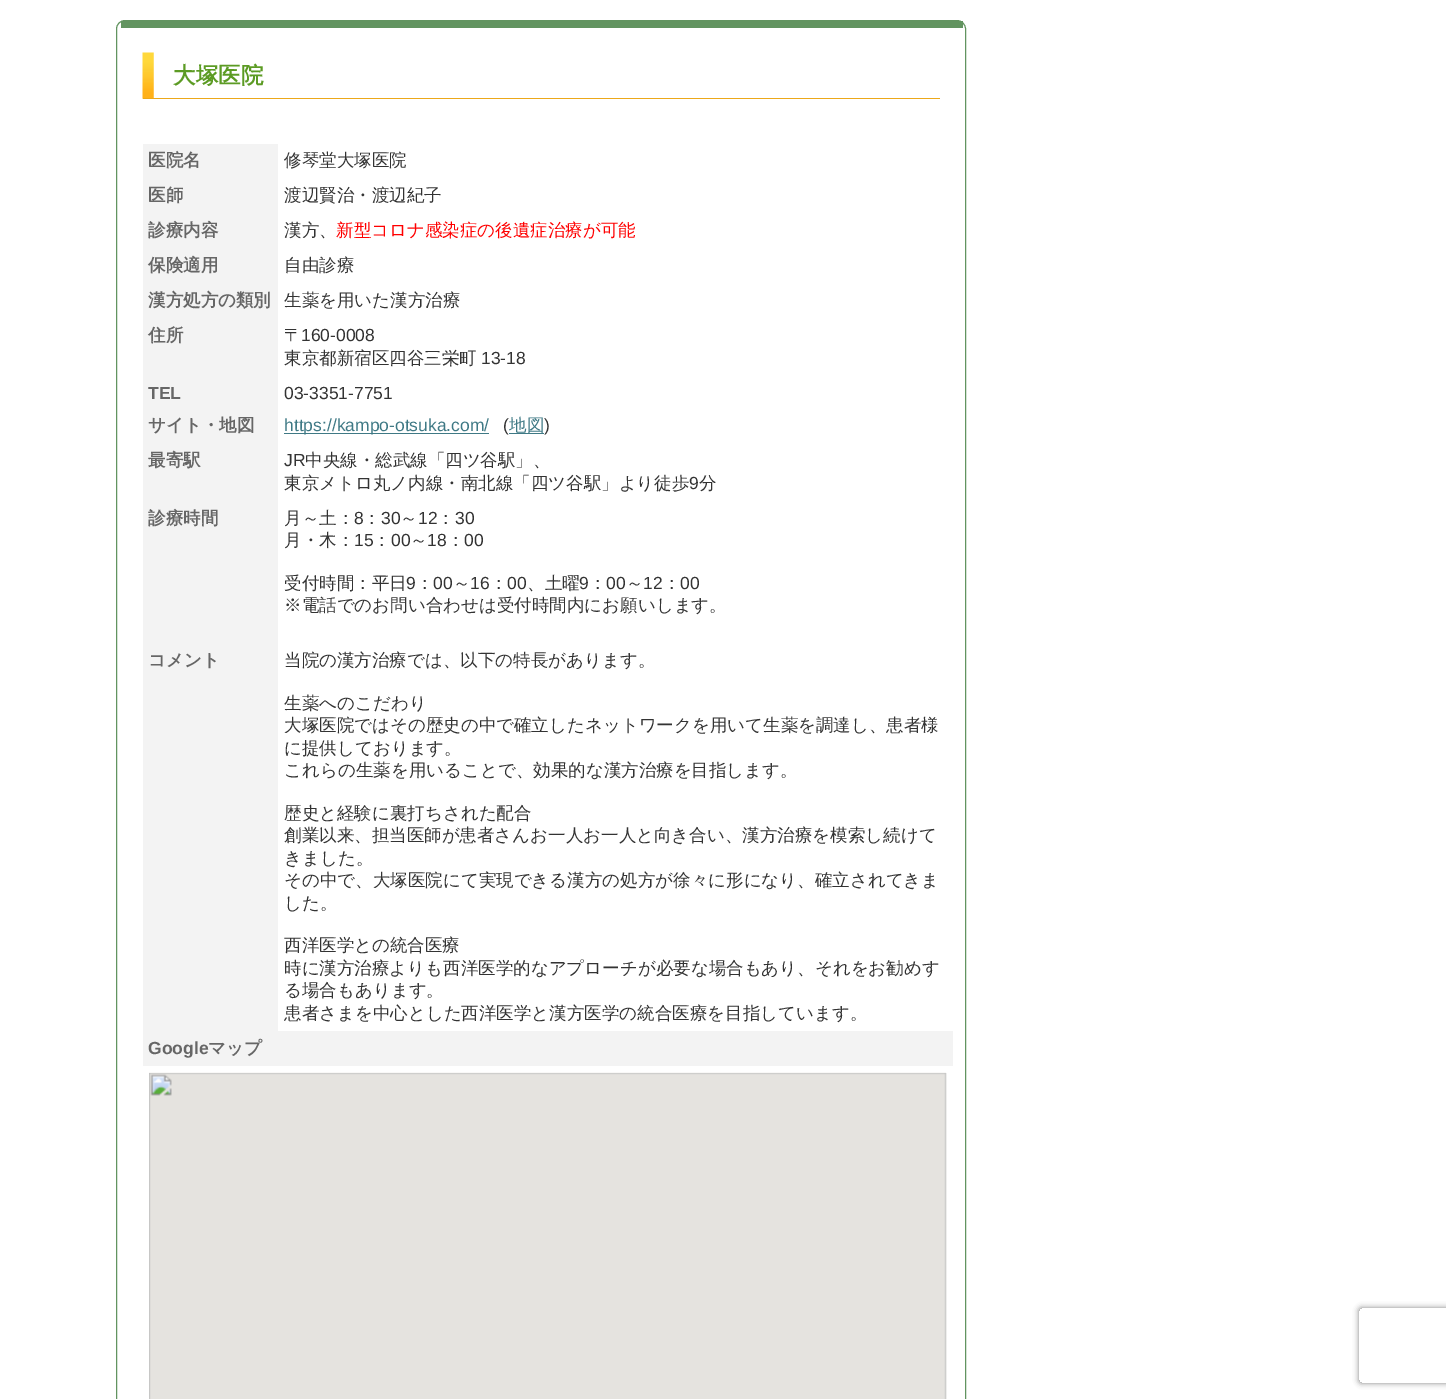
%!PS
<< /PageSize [1446 1399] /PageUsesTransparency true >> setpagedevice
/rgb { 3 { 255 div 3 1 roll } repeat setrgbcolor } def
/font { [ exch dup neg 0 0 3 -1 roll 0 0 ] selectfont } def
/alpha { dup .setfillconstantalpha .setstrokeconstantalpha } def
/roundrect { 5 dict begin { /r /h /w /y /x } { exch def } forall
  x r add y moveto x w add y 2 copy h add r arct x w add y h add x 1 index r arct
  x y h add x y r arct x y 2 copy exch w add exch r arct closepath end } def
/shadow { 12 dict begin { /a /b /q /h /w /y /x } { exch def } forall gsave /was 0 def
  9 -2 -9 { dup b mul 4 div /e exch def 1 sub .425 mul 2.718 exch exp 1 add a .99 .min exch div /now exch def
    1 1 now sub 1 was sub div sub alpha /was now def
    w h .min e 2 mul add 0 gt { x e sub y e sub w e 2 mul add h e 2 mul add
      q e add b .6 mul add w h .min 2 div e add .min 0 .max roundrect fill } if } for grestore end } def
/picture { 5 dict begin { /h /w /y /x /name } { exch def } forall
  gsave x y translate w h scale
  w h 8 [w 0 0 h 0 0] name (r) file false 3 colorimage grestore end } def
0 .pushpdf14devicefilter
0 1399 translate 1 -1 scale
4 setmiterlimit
255 255 255 rgb
0 0 1446 1399 rectfill
98 148 96 rgb
116.5 20.5 849 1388 8.5 roundrect stroke
121 21 842 7 rectfill
(img/1.rgb) 142 52 12 47 picture
[
  [143 98 797 1 236 168 26]
  [143 144 135 887 243 243 243]
  [284 433 205 1 63 121 133]
  [143 1031 810 35 243 243 243]
] { aload pop rgb rectfill } forall
(img/2.rgb) 149 1072 798 327 picture
gsave
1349 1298 moveto 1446 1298 lineto 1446 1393 lineto 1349 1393 lineto closepath 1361.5 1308 moveto 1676.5 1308 lineto 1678 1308 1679 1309 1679 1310.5 curveto 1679 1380.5 lineto 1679 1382 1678 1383 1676.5 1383 curveto 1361.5 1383 lineto 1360 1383 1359 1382 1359 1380.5 curveto 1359 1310.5 lineto 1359 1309 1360 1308 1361.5 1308 curveto closepath eoclip newpath
128 128 128 rgb
1359 1308 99 75 2.5 3 1 shadow
grestore
/WenQuanYiZenHei-Bold 22.5 font
92 155 36 rgb
173 83 moveto (大塚医院) show
/WenQuanYiZenHei-Bold 17.5 font
102 102 102 rgb
148 166 moveto (医院名) show
/WenQuanYiZenHei-Medium 17.5 font
51 51 51 rgb
284 166 moveto (修琴堂大塚医院) show
/WenQuanYiZenHei-Bold 17.5 font
102 102 102 rgb
148 201 moveto (医師) show
/WenQuanYiZenHei-Medium 17.5 font
51 51 51 rgb
284 201 moveto (渡辺賢治・渡辺紀子) show
/WenQuanYiZenHei-Bold 17.5 font
102 102 102 rgb
148 236 moveto (診療内容) show
/WenQuanYiZenHei-Medium 17.5 font
51 51 51 rgb
284 236 moveto (漢方、) show
255 0 0 rgb
336 236 moveto (新型コロナ感染症の後遺症治療が可能) show
/WenQuanYiZenHei-Bold 17.5 font
102 102 102 rgb
148 271 moveto (保険適用) show
/WenQuanYiZenHei-Medium 17.5 font
51 51 51 rgb
284 271 moveto (自由診療) show
/WenQuanYiZenHei-Bold 17.5 font
102 102 102 rgb
148 306 moveto (漢方処方の類別) show
/WenQuanYiZenHei-Medium 17.5 font
51 51 51 rgb
284 306 moveto (生薬を用いた漢方治療) show
/WenQuanYiZenHei-Bold 17.5 font
102 102 102 rgb
148 341 moveto (住所) show
/WenQuanYiZenHei-Medium 17.5 font
51 51 51 rgb
284 341 moveto (〒) show
/LiberationSans-Regular 17.5 font
301 341 moveto (160-0008) show
/WenQuanYiZenHei-Medium 17.5 font
284 364 moveto (東京都新宿区四谷三栄町) show
/LiberationSans-Regular 17.5 font
481 364 moveto (13-18) show
/LiberationSans-Bold 17.5 font
102 102 102 rgb
148 399 moveto (TEL) show
/LiberationSans-Regular 17.5 font
51 51 51 rgb
284 399 moveto (03-3351-7751) show
/WenQuanYiZenHei-Bold 17.5 font
102 102 102 rgb
148 431 moveto (サイト・地図) show
/LiberationSans-Regular 17.5 font
63 121 133 rgb
284 431 moveto (https://kampo-otsuka.com/) show
51 51 51 rgb
503 431 moveto (\() show
63 121 133 rgb
509 433 35 1 rectfill
/WenQuanYiZenHei-Medium 17.5 font
509 431 moveto (地図) show
/LiberationSans-Regular 17.5 font
51 51 51 rgb
544 431 moveto (\)) show
/WenQuanYiZenHei-Bold 17.5 font
102 102 102 rgb
148 466 moveto (最寄駅) show
/LiberationSans-Regular 17.5 font
51 51 51 rgb
284 466 moveto (JR) show
/WenQuanYiZenHei-Medium 17.5 font
305 466 moveto (中央線・総武線「四ツ谷駅」、) show
284 489 moveto (東京メトロ丸ノ内線・南北線「四ツ谷駅」より徒歩) show
/LiberationSans-Regular 17.5 font
689 489 moveto (9) show
/WenQuanYiZenHei-Medium 17.5 font
699 489 moveto (分) show
/WenQuanYiZenHei-Bold 17.5 font
102 102 102 rgb
148 524 moveto (診療時間) show
/WenQuanYiZenHei-Medium 17.5 font
51 51 51 rgb
284 524 moveto (月～土：) show
/LiberationSans-Regular 17.5 font
354 524 moveto (8) show
/WenQuanYiZenHei-Medium 17.5 font
363 524 moveto (：) show
/LiberationSans-Regular 17.5 font
381 524 moveto (30) show
/WenQuanYiZenHei-Medium 17.5 font
400 524 moveto (～) show
/LiberationSans-Regular 17.5 font
418 524 moveto (12) show
/WenQuanYiZenHei-Medium 17.5 font
437 524 moveto (：) show
/LiberationSans-Regular 17.5 font
455 524 moveto (30) show
/WenQuanYiZenHei-Medium 17.5 font
284 546 moveto (月・木：) show
/LiberationSans-Regular 17.5 font
354 546 moveto (15) show
/WenQuanYiZenHei-Medium 17.5 font
373 546 moveto (：) show
/LiberationSans-Regular 17.5 font
391 546 moveto (00) show
/WenQuanYiZenHei-Medium 17.5 font
410 546 moveto (～) show
/LiberationSans-Regular 17.5 font
427 546 moveto (18) show
/WenQuanYiZenHei-Medium 17.5 font
447 546 moveto (：) show
/LiberationSans-Regular 17.5 font
464 546 moveto (00) show
/WenQuanYiZenHei-Medium 17.5 font
284 589 moveto (受付時間：平日) show
/LiberationSans-Regular 17.5 font
406 589 moveto (9) show
/WenQuanYiZenHei-Medium 17.5 font
416 589 moveto (：) show
/LiberationSans-Regular 17.5 font
433 589 moveto (00) show
/WenQuanYiZenHei-Medium 17.5 font
453 589 moveto (～) show
/LiberationSans-Regular 17.5 font
470 589 moveto (16) show
/WenQuanYiZenHei-Medium 17.5 font
490 589 moveto (：) show
/LiberationSans-Regular 17.5 font
507 589 moveto (00) show
/WenQuanYiZenHei-Medium 17.5 font
527 589 moveto (、土曜) show
/LiberationSans-Regular 17.5 font
579 589 moveto (9) show
/WenQuanYiZenHei-Medium 17.5 font
589 589 moveto (：) show
/LiberationSans-Regular 17.5 font
606 589 moveto (00) show
/WenQuanYiZenHei-Medium 17.5 font
626 589 moveto (～) show
/LiberationSans-Regular 17.5 font
643 589 moveto (12) show
/WenQuanYiZenHei-Medium 17.5 font
663 589 moveto (：) show
/LiberationSans-Regular 17.5 font
680 589 moveto (00) show
/WenQuanYiZenHei-Medium 17.5 font
284 611 moveto (※電話でのお問い合わせは受付時間内にお願いします。) show
/WenQuanYiZenHei-Bold 17.5 font
102 102 102 rgb
148 666 moveto (コメント) show
/WenQuanYiZenHei-Medium 17.5 font
51 51 51 rgb
[
  [(当院の漢方治療では、以下の特長があります。) 284 666]
  [(生薬へのこだわり) 284 709]
  [(大塚医院ではその歴史の中で確立したネットワークを用いて生薬を調達し、患者様) 284 731]
  [(に提供しております。) 284 754]
  [(これらの生薬を用いることで、効果的な漢方治療を目指します。) 284 776]
  [(歴史と経験に裏打ちされた配合) 284 819]
  [(創業以来、担当医師が患者さんお一人お一人と向き合い、漢方治療を模索し続けて) 284 841]
  [(きました。) 284 864]
  [(その中で、大塚医院にて実現できる漢方の処方が徐々に形になり、確立されてきま) 284 886]
  [(した。) 284 909]
  [(西洋医学との統合医療) 284 951]
  [(時に漢方治療よりも西洋医学的なアプローチが必要な場合もあり、それをお勧めす) 284 974]
  [(る場合もあります。) 284 996]
  [(患者さまを中心とした西洋医学と漢方医学の統合医療を目指しています。) 284 1019]
] { aload pop moveto show } forall
/LiberationSans-Bold 17.5 font
102 102 102 rgb
148 1054 moveto (Google) show
/WenQuanYiZenHei-Bold 17.5 font
208 1054 moveto (マップ) show
.poppdf14devicefilter showpage
